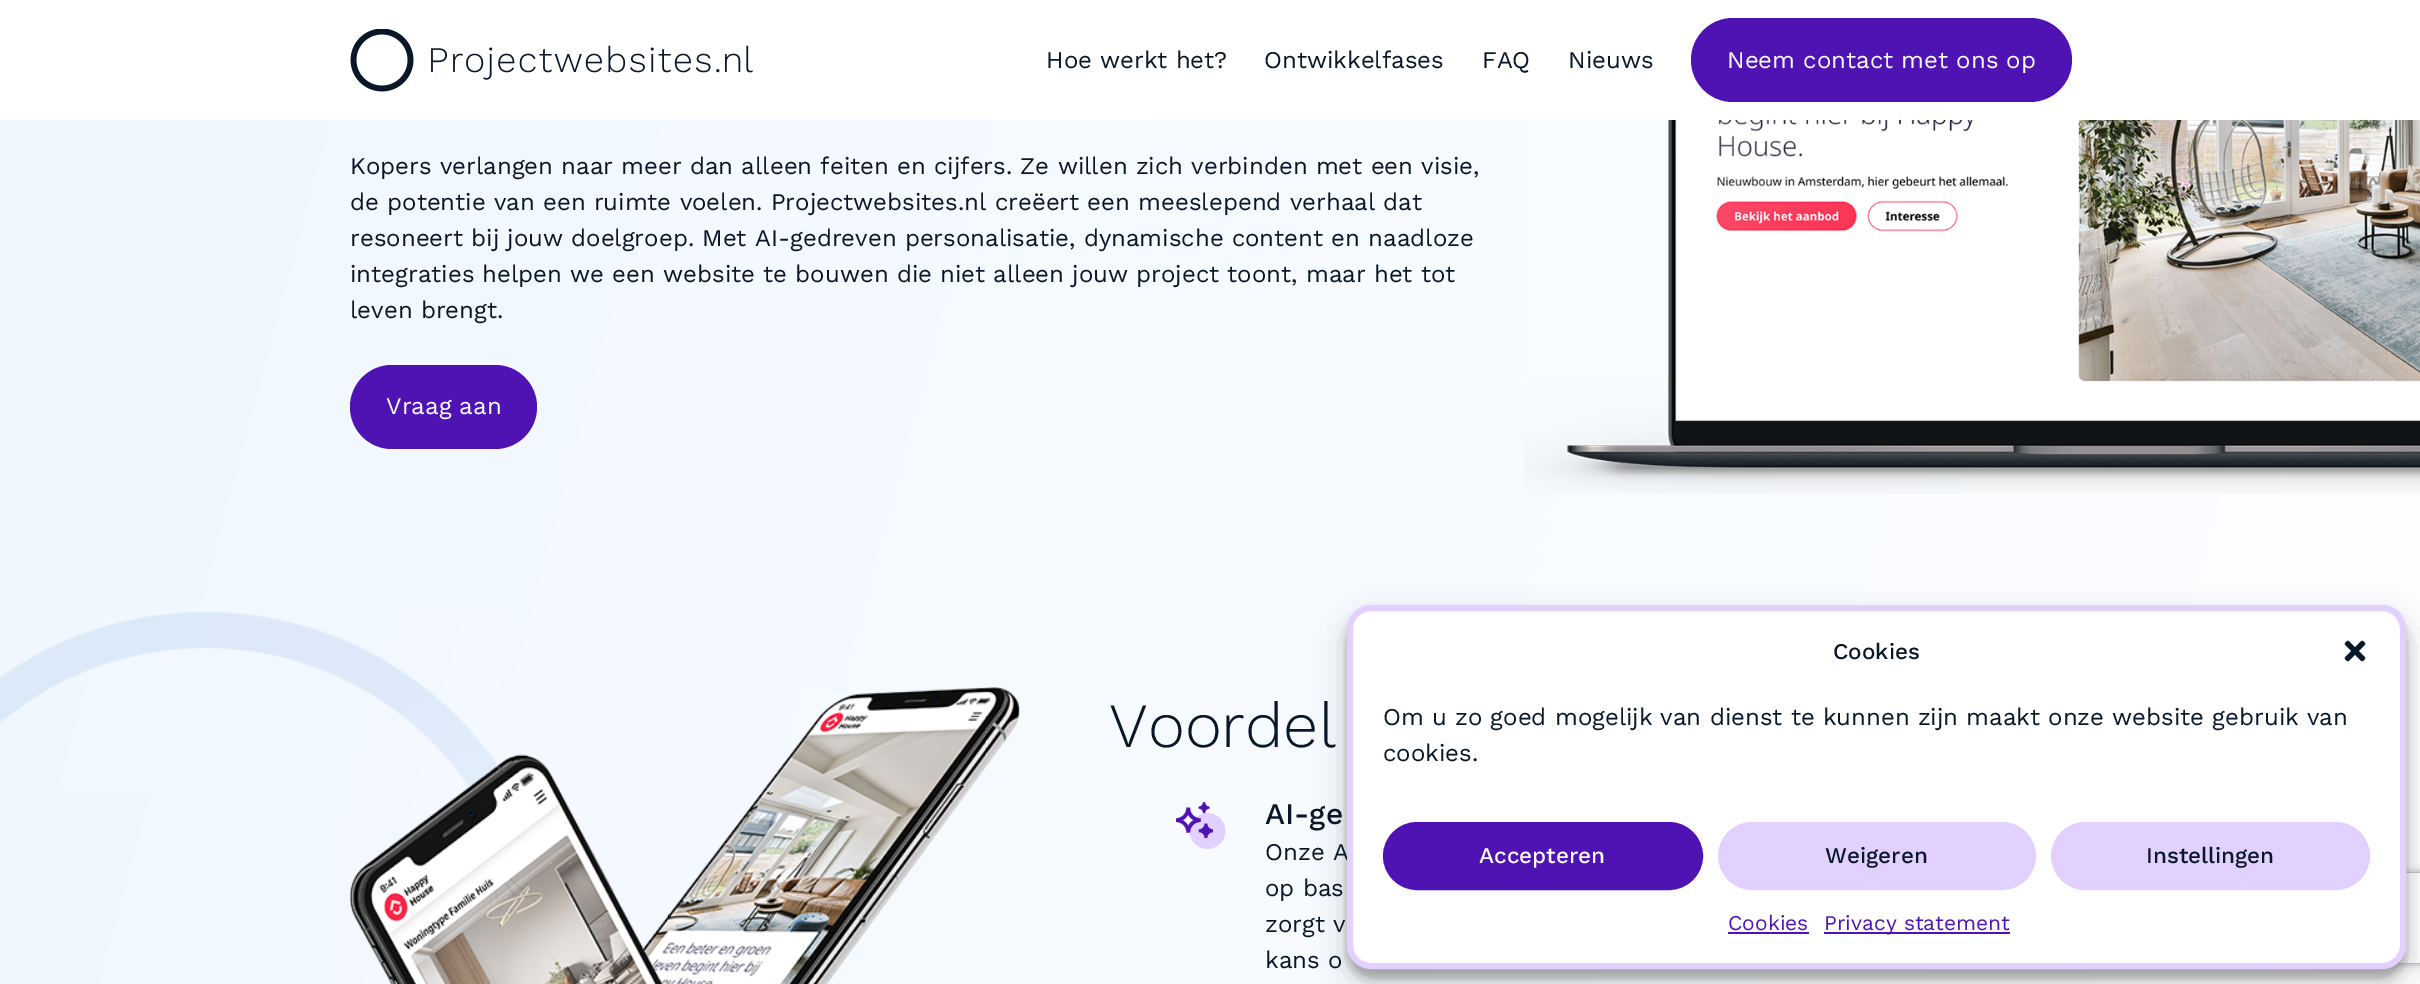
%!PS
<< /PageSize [2420 984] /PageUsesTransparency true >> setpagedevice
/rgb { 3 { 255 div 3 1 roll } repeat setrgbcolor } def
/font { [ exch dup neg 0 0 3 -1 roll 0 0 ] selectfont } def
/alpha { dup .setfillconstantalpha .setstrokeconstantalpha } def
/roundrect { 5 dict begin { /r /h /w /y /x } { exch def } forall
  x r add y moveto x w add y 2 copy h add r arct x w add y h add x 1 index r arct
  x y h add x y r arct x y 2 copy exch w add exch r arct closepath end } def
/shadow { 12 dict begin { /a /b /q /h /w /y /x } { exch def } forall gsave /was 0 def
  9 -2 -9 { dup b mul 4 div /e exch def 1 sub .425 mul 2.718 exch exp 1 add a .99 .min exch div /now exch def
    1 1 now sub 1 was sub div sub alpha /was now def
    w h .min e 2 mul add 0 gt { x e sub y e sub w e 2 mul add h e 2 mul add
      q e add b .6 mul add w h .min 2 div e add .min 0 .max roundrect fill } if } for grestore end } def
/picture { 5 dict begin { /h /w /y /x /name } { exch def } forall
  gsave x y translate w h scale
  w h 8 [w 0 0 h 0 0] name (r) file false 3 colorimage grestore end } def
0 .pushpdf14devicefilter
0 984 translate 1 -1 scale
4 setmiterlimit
255 255 255 rgb
0 0 2420 984 rectfill
gsave 0 120 moveto 2420 120 lineto 2420 984 lineto 0 984 lineto closepath clip newpath
<< /ShadingType 2 /ColorSpace /DeviceRGB /Coords [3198 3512 -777 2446] /Extend [true true] /Function << /FunctionType 3 /Domain [0 1] /Functions [<< /FunctionType 2 /Domain [0 1] /C0 [1 1 1] /C1 [1 1 1] /N 1 >> << /FunctionType 2 /Domain [0 1] /C0 [1 1 1] /C1 [0.941 0.969 1] /N 1 >> << /FunctionType 2 /Domain [0 1] /C0 [0.941 0.969 1] /C1 [0.941 0.969 1] /N 1 >>] /Bounds [0.28 0.95] /Encode [0 1 0 1 0 1] >> >> shfill grestore
(img/1.rgb) 350 29 403 63 picture
80 19 179 rgb
1691 18 381 84 42 roundrect fill
350 365 187 84 42 roundrect fill
(img/2.rgb) 1524 120 896 374 picture
(img/3.rgb) 0 612 499 177 picture
(img/4.rgb) 350 687 670 297 picture
(img/5.rgb) 1176 802 50 47 picture
0 0 0 rgb
1347 614 1059 364 24 4.5 0.23 shadow
1347 620 1059 364 24 15 0.19 shadow
gsave
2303 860 moveto 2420 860 lineto 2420 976 lineto 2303 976 lineto closepath 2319 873 moveto 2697 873 lineto 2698.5 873 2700 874.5 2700 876 curveto 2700 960 lineto 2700 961.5 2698.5 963 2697 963 curveto 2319 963 lineto 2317.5 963 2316 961.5 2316 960 curveto 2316 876 lineto 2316 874.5 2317.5 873 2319 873 curveto closepath eoclip newpath
128 128 128 rgb
2316 873 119 90 3 4 1 shadow
grestore
/WorkSans-Regular 24 font
9 23 40 rgb
[
  [(Hoe werkt het?) 1046 68]
  [(Ontwikkelfases) 1264 68]
  [(FAQ) 1482 68]
  [(Nieuws) 1568 68]
] { aload pop moveto show } forall
255 255 255 rgb
1727 68 moveto (Neem contact met ons op) show
9 23 40 rgb
[
  [(Kopers verlangen naar meer dan alleen feiten en cijfers. Ze willen zich verbinden met een visie,) 350 174]
  [(de potentie van een ruimte voelen. Projectwebsites.nl creëert een meeslepend verhaal dat) 350 210]
  [(resoneert bij jouw doelgroep. Met AI-gedreven personalisatie, dynamische content en naadloze) 350 246]
  [(integraties helpen we een website te bouwen die niet alleen jouw project toont, maar het tot) 350 282]
  [(leven brengt.) 350 318]
] { aload pop moveto show } forall
255 255 255 rgb
386 414 moveto (Vraag aan) show
/WorkSans-Light 63 font
9 23 40 rgb
1109 747 moveto (Voordel) show
/WorkSans-Medium 30 font
1265 824 moveto (AI-ge) show
/WorkSans-Regular 24 font
[
  [(Onze A) 1265 860]
  [(op bas) 1265 896]
  [(zorgt v) 1265 932]
  [(kans o) 1265 968]
] { aload pop moveto show } forall
255 255 255 rgb
1350 608 1053 358 21 roundrect gsave fill grestore
226 209 255 rgb
6 setlinewidth
stroke
/WorkSans-Medium 22.5 font
9 23 40 rgb
1833 659 moveto (Cookies) show
(img/6.rgb) 2344 640 22 22 picture
/WorkSans-Regular 24 font
1383 725 moveto (Om u zo goed mogelijk van dienst te kunnen zijn maakt onze website gebruik van) show
1383 761 moveto (cookies.) show
80 19 179 rgb
1384 823 318 66 33 roundrect gsave fill grestore
2 setlinewidth
stroke
/WorkSans-Medium 22.5 font
255 255 255 rgb
1479 863 moveto (Accepteren) show
226 209 255 rgb
1719 823 316 66 33 roundrect gsave fill grestore
stroke
9 23 40 rgb
1825 863 moveto (Weigeren) show
226 209 255 rgb
2052 823 317 66 33 roundrect gsave fill grestore
stroke
9 23 40 rgb
2146 863 moveto (Instellingen) show
/WorkSans-Regular 21 font
80 19 179 rgb
1728 930 moveto (Cookies) show
1728 932 81 2 rectfill
1824 932 186 2 rectfill
1824 930 moveto (Privacy statement) show
.poppdf14devicefilter showpage
